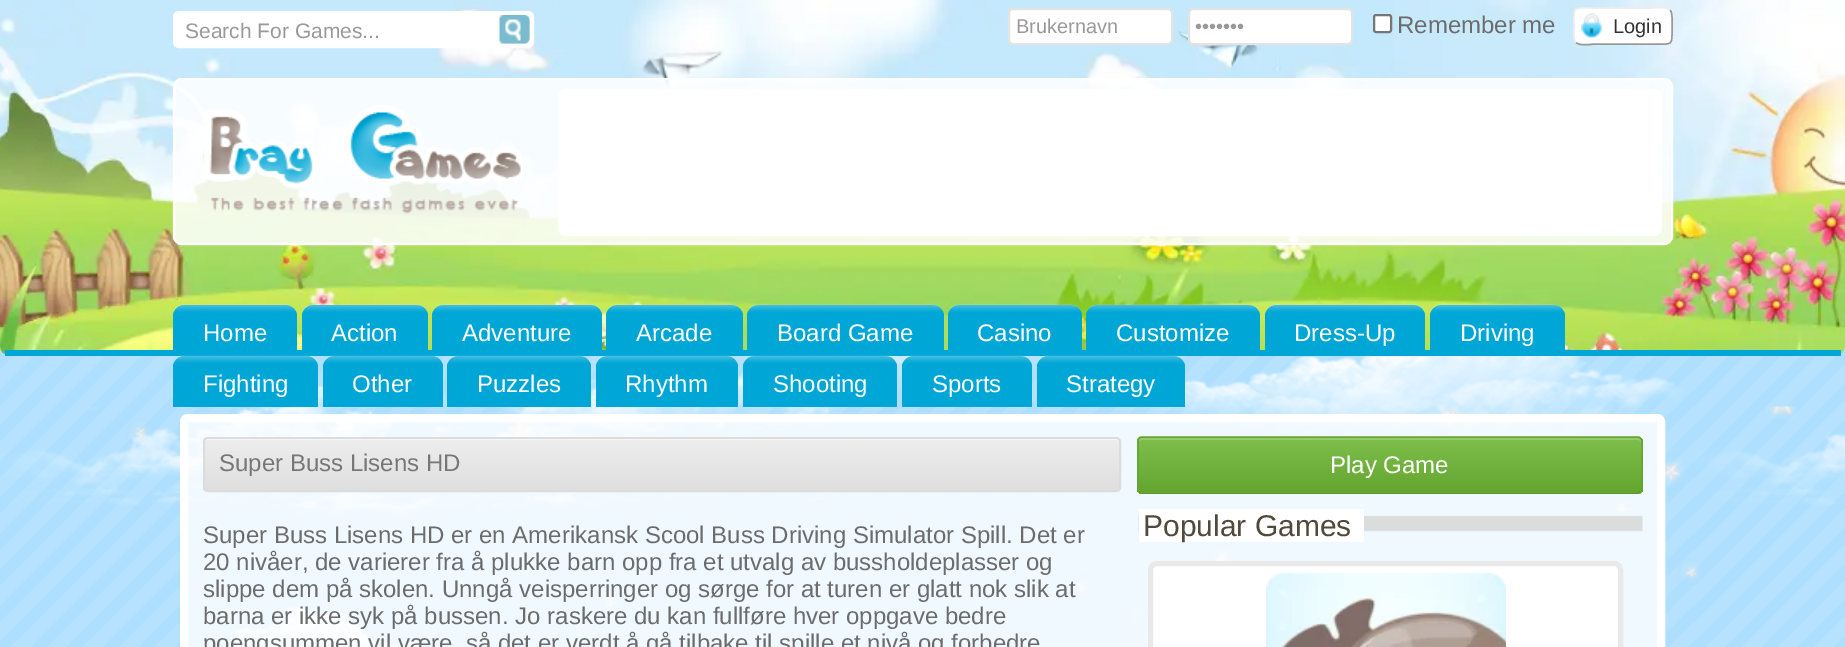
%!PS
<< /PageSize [1845 647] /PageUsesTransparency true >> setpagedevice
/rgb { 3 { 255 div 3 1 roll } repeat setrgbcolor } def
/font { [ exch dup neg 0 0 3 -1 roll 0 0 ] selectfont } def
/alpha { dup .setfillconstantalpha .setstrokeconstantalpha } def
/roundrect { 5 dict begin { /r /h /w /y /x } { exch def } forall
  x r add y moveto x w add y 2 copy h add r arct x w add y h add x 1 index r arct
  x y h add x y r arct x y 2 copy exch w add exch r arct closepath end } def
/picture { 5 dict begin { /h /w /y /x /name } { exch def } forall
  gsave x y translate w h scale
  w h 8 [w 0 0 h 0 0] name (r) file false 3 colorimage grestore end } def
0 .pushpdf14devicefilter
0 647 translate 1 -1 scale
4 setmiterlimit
174 223 255 rgb
0 0 1845 647 rectfill
(img/1.rgb) 0 347 1845 300 picture
(img/2.rgb) 0 0 1845 355 picture
0 166 214 rgb
5 350 1836 6 rectfill
255 255 255 rgb
174 12 359 35 5 roundrect gsave fill grestore
2 setlinewidth
stroke
239 239 239 rgb
500 15 moveto 525 15 lineto 528 15 530 17 530 20 curveto 530 39 lineto 530 42 528 44 525 44 curveto 500 44 lineto closepath fill
(img/3.rgb) 499 15 31 29 picture
255 255 255 rgb
1009 9 163 35 4 roundrect gsave fill grestore
227 227 227 rgb
stroke
255 255 255 rgb
1189 9 163 35 4 roundrect gsave fill grestore
227 227 227 rgb
stroke
255 255 255 rgb
1374 15 17 17 2 roundrect gsave fill grestore
118 118 118 rgb
stroke
255 255 255 rgb
1574 8 99 37 6 roundrect fill
(img/4.rgb) 1581 13 21 25 picture
153 153 153 rgb
1.5 setlinewidth
1670 10 moveto 1673 12.5 1672 22.5 1672 26 curveto 1672 47 1674 44 1652 44 curveto 1594 44 lineto 1594 44 1579.5 46.5 1576 42.5 curveto stroke
237 237 237 rgb
1576 42.5 moveto 1573 40 1574 30 1574 26 curveto 1574 5.5 1572 8 1594 8 curveto 1652 8 lineto 1652 8 1666.5 6 1670 10 curveto stroke
0.7 alpha
255 255 255 rgb
173 78 1500 167 9 roundrect fill
1 alpha
(img/5.rgb) 172 78 1501 167 picture
2 setlinewidth
174 79 1498 165 8 roundrect stroke
(img/6.rgb) 203 105 318 109 picture
559 90 1102 145 7 roundrect gsave fill grestore
stroke
0 166 214 rgb
184 305 moveto 286 305 lineto 292 305 297 310 297 316 curveto 297 356 lineto 173 356 lineto 173 316 lineto 173 310 178 305 184 305 curveto closepath fill
(img/7.rgb) 173 304 123 8 picture
313 305 moveto 417 305 lineto 423 305 428 310 428 316 curveto 428 356 lineto 302 356 lineto 302 316 lineto 302 310 307 305 313 305 curveto closepath fill
(img/8.rgb) 302 304 125 8 picture
443 305 moveto 591 305 lineto 597 305 602 310 602 316 curveto 602 356 lineto 432 356 lineto 432 316 lineto 432 310 437 305 443 305 curveto closepath fill
(img/9.rgb) 433 304 168 8 picture
617 305 moveto 732 305 lineto 738 305 743 310 743 316 curveto 743 356 lineto 606 356 lineto 606 316 lineto 606 310 611 305 617 305 curveto closepath fill
(img/10.rgb) 607 304 135 8 picture
758 305 moveto 933 305 lineto 939 305 944 310 944 316 curveto 944 356 lineto 747 356 lineto 747 316 lineto 747 310 752 305 758 305 curveto closepath fill
(img/11.rgb) 748 304 195 8 picture
959 305 moveto 1071 305 lineto 1077 305 1082 310 1082 316 curveto 1082 356 lineto 948 356 lineto 948 316 lineto 948 310 953 305 959 305 curveto closepath fill
(img/12.rgb) 949 304 132 8 picture
1097 305 moveto 1249 305 lineto 1255 305 1260 310 1260 316 curveto 1260 356 lineto 1086 356 lineto 1086 316 lineto 1086 310 1091 305 1097 305 curveto closepath fill
(img/13.rgb) 1087 304 172 8 picture
1276 305 moveto 1414 305 lineto 1420 305 1425 310 1425 316 curveto 1425 356 lineto 1265 356 lineto 1265 316 lineto 1265 310 1270 305 1276 305 curveto closepath fill
(img/14.rgb) 1265 304 159 8 picture
1441 305 moveto 1554 305 lineto 1560 305 1565 310 1565 316 curveto 1565 356 lineto 1430 356 lineto 1430 316 lineto 1430 310 1435 305 1441 305 curveto closepath fill
(img/15.rgb) 1430 304 134 8 picture
(img/23.rgb) 85 406 1712 206 picture
184 356 moveto 307 356 lineto 313 356 318 361 318 367 curveto 318 407 lineto 173 407 lineto 173 367 lineto 173 361 178 356 184 356 curveto closepath fill
(img/16.rgb) 174 355 143 8 picture
334 356 moveto 432 356 lineto 438 356 443 361 443 367 curveto 443 407 lineto 323 407 lineto 323 367 lineto 323 361 328 356 334 356 curveto closepath fill
(img/17.rgb) 324 355 118 8 picture
458 356 moveto 580 356 lineto 586 356 591 361 591 367 curveto 591 407 lineto 447 407 lineto 447 367 lineto 447 361 452 356 458 356 curveto closepath fill
(img/18.rgb) 448 355 142 8 picture
607 356 moveto 727 356 lineto 733 356 738 361 738 367 curveto 738 407 lineto 596 407 lineto 596 367 lineto 596 361 601 356 607 356 curveto closepath fill
(img/19.rgb) 597 355 140 8 picture
754 356 moveto 886 356 lineto 892 356 897 361 897 367 curveto 897 407 lineto 743 407 lineto 743 367 lineto 743 361 748 356 754 356 curveto closepath fill
(img/20.rgb) 744 355 152 8 picture
913 356 moveto 1021 356 lineto 1027 356 1032 361 1032 367 curveto 1032 407 lineto 902 407 lineto 902 367 lineto 902 361 907 356 913 356 curveto closepath fill
(img/21.rgb) 903 355 128 8 picture
1048 356 moveto 1174 356 lineto 1180 356 1185 361 1185 367 curveto 1185 407 lineto 1037 407 lineto 1037 367 lineto 1037 361 1042 356 1048 356 curveto closepath fill
(img/22.rgb) 1038 355 146 8 picture
0.8 alpha
255 255 255 rgb
184 418 1477 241 4 roundrect fill
1 alpha
8 setlinewidth
184 418 1477 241 4 roundrect stroke
gsave
203 437 918 55 5 roundrect clip newpath
gsave 203 438 moveto 1121 438 lineto 1121 491 lineto 203 491 lineto closepath clip newpath
<< /ShadingType 2 /ColorSpace /DeviceRGB /Coords [204 438 204 491] /Extend [true true] /Function << /FunctionType 3 /Domain [0 1] /Functions [<< /FunctionType 2 /Domain [0 1] /C0 [0.929 0.929 0.929] /C1 [0.929 0.929 0.929] /N 1 >> << /FunctionType 2 /Domain [0 1] /C0 [0.929 0.929 0.929] /C1 [0.875 0.875 0.875] /N 1 >>] /Bounds [0.05] /Encode [0 1 0 1] >> >> shfill grestore
grestore
207 440 moveto 1116 440 lineto 1118 440 1119 441 1119 442 curveto 1119 440 1118 438 1116 438 curveto 207 438 lineto 205 438 204 440 204 442 curveto 204 441 205 440 207 440 curveto closepath fill
220 220 220 rgb
2 setlinewidth
204 438 916 53 4 roundrect stroke
gsave
1137 437 506 57 5 roundrect clip newpath
gsave 1137 438 moveto 1643 438 lineto 1643 492 lineto 1137 492 lineto closepath clip newpath
<< /ShadingType 2 /ColorSpace /DeviceRGB /Coords [1390 438 1390 492] /Extend [true true] /Function << /FunctionType 2 /Domain [0 1] /C0 [0.498 0.749 0.302] /C1 [0.388 0.651 0.184] /N 1 >> >> shfill grestore
gsave 1137 492 moveto 1643 492 lineto 1643 494 lineto 1137 494 lineto closepath clip newpath
<< /ShadingType 2 /ColorSpace /DeviceRGB /Coords [1390 492 1390 546] /Extend [true true] /Function << /FunctionType 2 /Domain [0 1] /C0 [0.498 0.749 0.302] /C1 [0.388 0.651 0.184] /N 1 >> >> shfill grestore
grestore
150 202 109 rgb
1142 440 moveto 1638 440 lineto 1640 440 1641 441 1641 442 curveto 1641 441 lineto 1641 439 1640 438 1638 438 curveto 1142 438 lineto 1140 438 1139 439 1139 441 curveto closepath fill
91 153 43 rgb
1.5 setlinewidth
1640.5 491.5 moveto 1638 493 lineto 1141.5 493 lineto 1139 491.5 lineto stroke
99 166 47 rgb
1139 491.5 moveto 1138 491 1138 490 1138 489 curveto 1138 441 lineto 1138 440 1138 439 1139 438.5 curveto 1139.5 437.5 1140.5 437 1141.5 437 curveto 1638 437 lineto 1639 437 1640 437.5 1640.5 438.5 curveto 1641.5 439 1642 440 1642 441 curveto 1642 489 lineto 1642 490 1641.5 491 1640.5 491.5 curveto stroke
(img/24.rgb) 1138 515 505 17 picture
255 255 255 rgb
1139 509 225 33 rectfill
1150.5 563.5 470 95 6.5 roundrect gsave fill grestore
233 233 233 rgb
5 setlinewidth
stroke
(img/25.rgb) 1266 573 240 74 picture
/LiberationSans-Regular 21 font
153 153 153 rgb
185 38 moveto (Search For Games...) show
/LiberationSans-Regular 20 font
1016 33 moveto (Brukernavn) show
1195 33 moveto (•••••••) show
/LiberationSans-Regular 24 font
108 108 108 rgb
1397 33 moveto (Remember me) show
/LiberationSans-Regular 20 font
51 51 51 rgb
1613 33 moveto (Login) show
/LiberationSans-Regular 24 font
255 255 255 rgb
[
  [(Home) 203 341]
  [(Action) 331 341]
  [(Adventure) 462 341]
  [(Arcade) 636 341]
  [(Board Game) 777 341]
  [(Casino) 977 341]
  [(Customize) 1116 341]
  [(Dress-Up) 1294 341]
  [(Driving) 1460 341]
  [(Fighting) 203 392]
  [(Other) 352 392]
  [(Puzzles) 477 392]
  [(Rhythm) 625 392]
  [(Shooting) 773 392]
  [(Sports) 932 392]
  [(Strategy) 1066 392]
] { aload pop moveto show } forall
119 119 119 rgb
219 471 moveto (Super Buss Lisens HD) show
255 255 255 rgb
1330 473 moveto (Play Game) show
108 108 108 rgb
[
  [(Super Buss Lisens HD er en Amerikansk Scool Buss Driving Simulator Spill. Det er) 203 543]
  [(20 nivåer, de varierer fra å plukke barn opp fra et utvalg av bussholdeplasser og) 203 570]
  [(slippe dem på skolen. Unngå veisperringer og sørge for at turen er glatt nok slik at) 203 597]
  [(barna er ikke syk på bussen. Jo raskere du kan fullføre hver oppgave bedre) 203 624]
  [(poengsummen vil være, så det er verdt å gå tilbake til spille et nivå og forbedre) 203 651]
] { aload pop moveto show } forall
/LiberationSans-Regular 30 font
81 73 60 rgb
1143 536 moveto (Popular Games) show
.poppdf14devicefilter showpage
